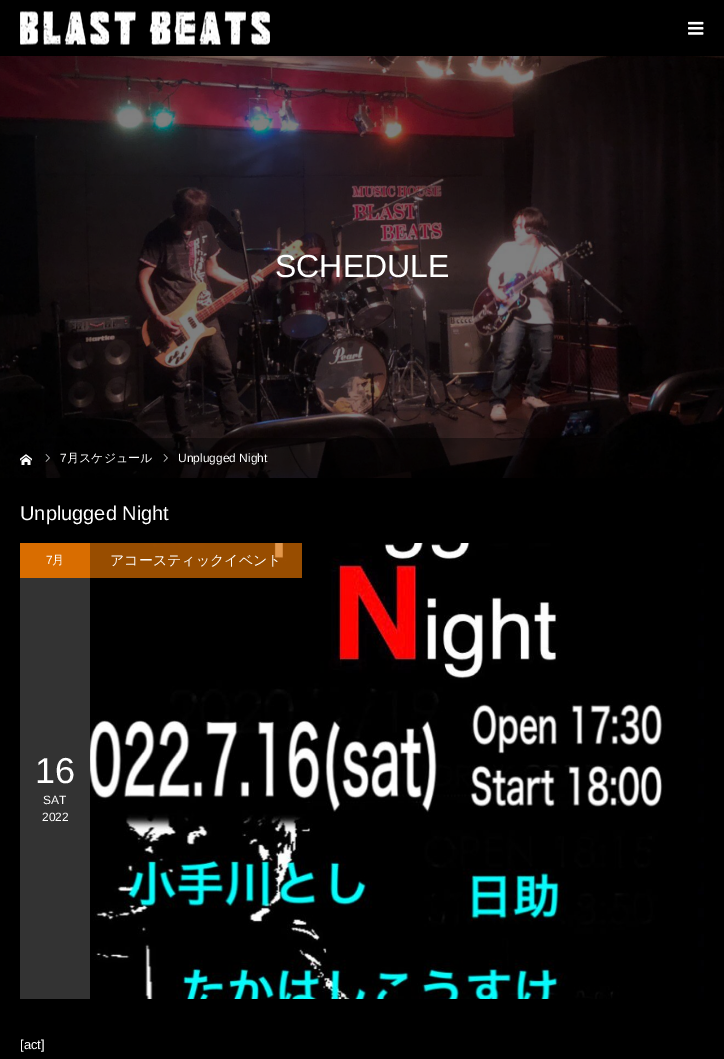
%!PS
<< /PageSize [724 1059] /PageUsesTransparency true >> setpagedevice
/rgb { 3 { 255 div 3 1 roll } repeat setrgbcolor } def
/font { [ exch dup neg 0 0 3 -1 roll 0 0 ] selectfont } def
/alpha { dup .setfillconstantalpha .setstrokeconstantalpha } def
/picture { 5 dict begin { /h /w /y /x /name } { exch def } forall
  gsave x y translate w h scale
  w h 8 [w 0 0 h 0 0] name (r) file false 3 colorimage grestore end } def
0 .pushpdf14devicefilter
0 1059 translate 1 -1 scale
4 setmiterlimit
255 255 255 rgb
0 0 724 1059 rectfill
0 0 0 rgb
0 0 724 56 rectfill
(img/1.rgb) 20 11 250 34 picture
(img/2.rgb) 688 21 16 14 picture
(img/3.rgb) 0 56 724 422 picture
0.4 alpha
45 438 560 40 rectfill
1 alpha
(img/4.rgb) 20 454 12 11 picture
(img/5.rgb) 45 454 5 8 picture
(img/6.rgb) 163 454 5 8 picture
[
  [0 478 724 581 0 0 0]
  [20 578 70 421 51 51 51]
  [20 543 70 35 217 109 0]
] { aload pop rgb rectfill } forall
(img/7.rgb) 90 543 614 456 picture
0.7 alpha
90 543 212 35 rectfill
/LiberationSans-Regular 32 font
1 alpha
255 255 255 rgb
275 277 moveto (SCHEDULE) show
/LiberationSans-Regular 12 font
60 462 moveto (7) show
/WenQuanYiZenHei-Medium 12 font
67 462 moveto (月スケジュール) show
/LiberationSans-Regular 12 font
178 462 moveto (Unplugged Night) show
/LiberationSans-Regular 20 font
20 520 moveto (Unplugged Night) show
/LiberationSans-Regular 12 font
46 564 moveto (7) show
/WenQuanYiZenHei-Medium 12 font
52 564 moveto (月) show
/LiberationSans-Regular 36 font
35 783 moveto (16) show
/LiberationSans-Regular 12 font
43 804 moveto (SAT) show
42 821 moveto (2022) show
/WenQuanYiZenHei-Medium 14 font
110 565 moveto (アコースティックイベント) show
/LiberationSans-Regular 13 font
20 1049 moveto ([act]) show
.poppdf14devicefilter showpage
